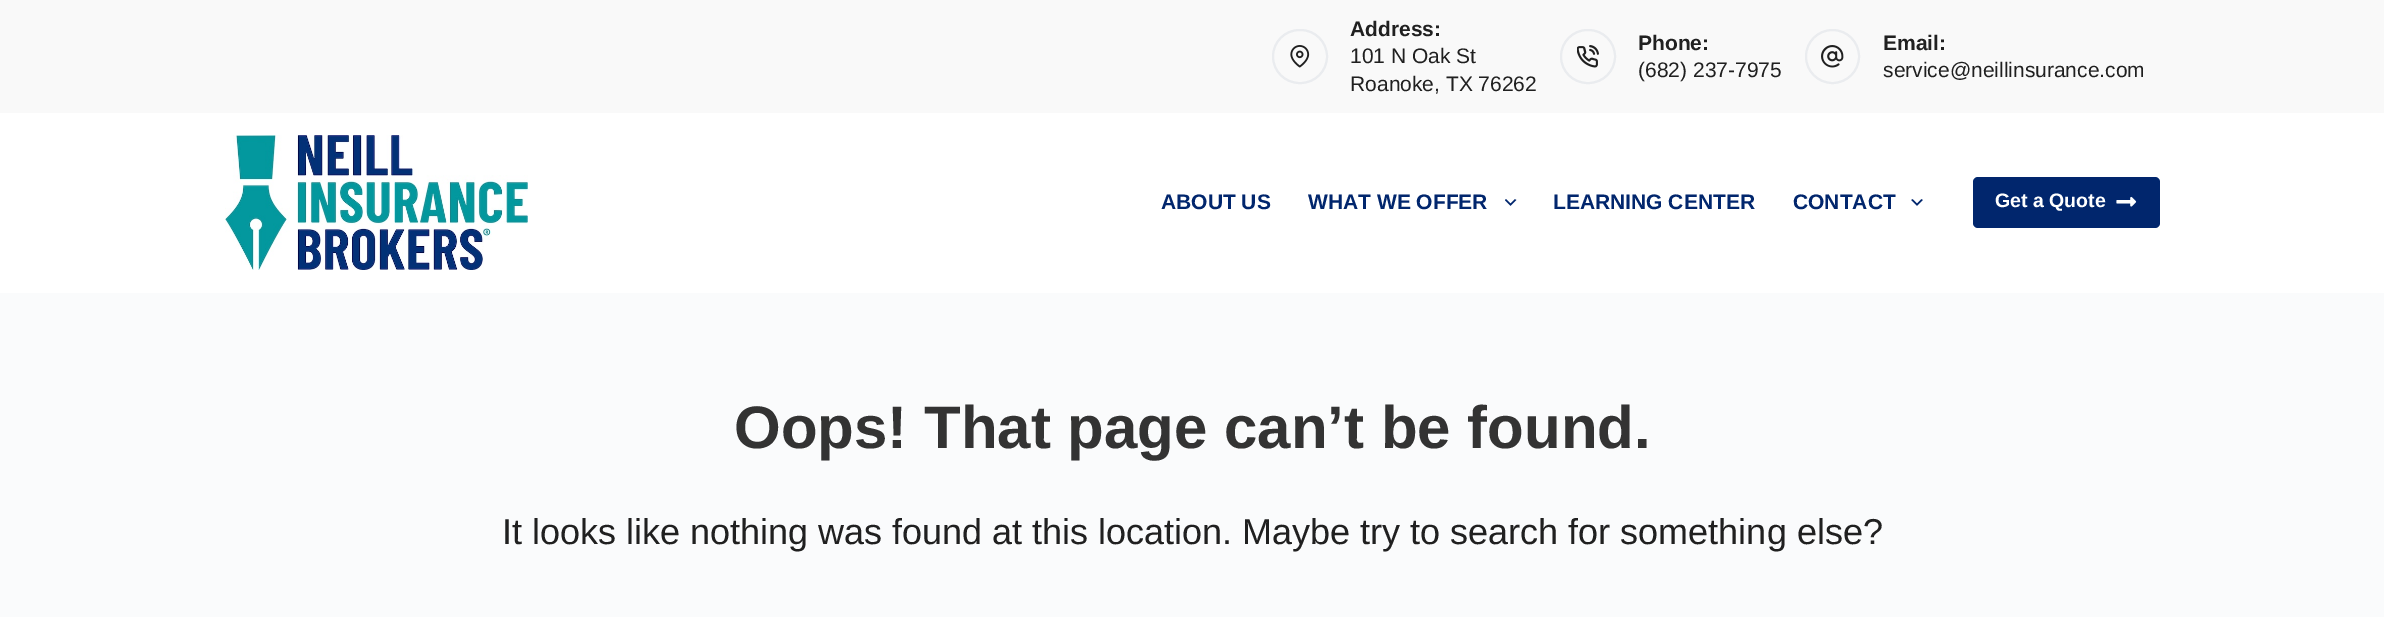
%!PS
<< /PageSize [2384 617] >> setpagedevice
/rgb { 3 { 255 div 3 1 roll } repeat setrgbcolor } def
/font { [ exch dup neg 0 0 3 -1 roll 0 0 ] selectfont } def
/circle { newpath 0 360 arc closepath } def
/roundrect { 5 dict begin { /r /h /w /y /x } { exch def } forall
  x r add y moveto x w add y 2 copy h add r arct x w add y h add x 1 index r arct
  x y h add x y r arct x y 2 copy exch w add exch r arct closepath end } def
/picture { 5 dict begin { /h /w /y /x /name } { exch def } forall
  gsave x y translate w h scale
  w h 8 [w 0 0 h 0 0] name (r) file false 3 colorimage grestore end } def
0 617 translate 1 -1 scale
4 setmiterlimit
250 251 252 rgb
0 0 2384 617 rectfill
249 249 249 rgb
0 0 2384 113 rectfill
234 236 239 rgb
2 setlinewidth
1273 30 54 53 26.5 roundrect stroke
(img/1.rgb) 1290 45 20 23 picture
1561 30 54 53 26.5 roundrect stroke
(img/2.rgb) 1577 45 22 23 picture
1832.5 56.5 26.5 circle stroke
(img/3.rgb) 1821 45 23 23 picture
255 255 255 rgb
0 113 2384 180 rectfill
(img/4.rgb) 225 135 303 135 picture
(img/5.rgb) 1505 199 12 7 picture
(img/6.rgb) 1911 199 12 7 picture
1 38 109 rgb
1973 177 187 51 5 roundrect fill
(img/7.rgb) 2116 196 21 11 picture
/LiberationSans-Bold 21 font
32 32 32 rgb
1350 36 moveto (Address:) show
/LiberationSans-Regular 21 font
1350 63 moveto (101 N Oak St) show
1350 91 moveto (Roanoke, TX 76262) show
/LiberationSans-Bold 21 font
1638 50 moveto (Phone:) show
/LiberationSans-Regular 21 font
1638 77 moveto (\(682\) 237-7975) show
/LiberationSans-Bold 21 font
1883 50 moveto (Email:) show
/LiberationSans-Regular 21 font
1883 77 moveto (service@neillinsurance.com) show
/LiberationSans-Bold 21 font
1 38 109 rgb
[
  [(ABOUT US) 1161 209]
  [(WHAT WE OFFER) 1308 209]
  [(LEARNING CENTER) 1553 209]
  [(CONTACT) 1793 209]
] { aload pop moveto show } forall
/LiberationSans-Bold 19.5 font
255 255 255 rgb
1995 207 moveto (Get a Quote) show
/LiberationSans-Bold 60 font
51 51 51 rgb
734 448 moveto (Oops! That page can’t be found.) show
/LiberationSans-Regular 36 font
32 32 32 rgb
502 544 moveto (It looks like nothing was found at this location. Maybe try to search for something else?) show
showpage
